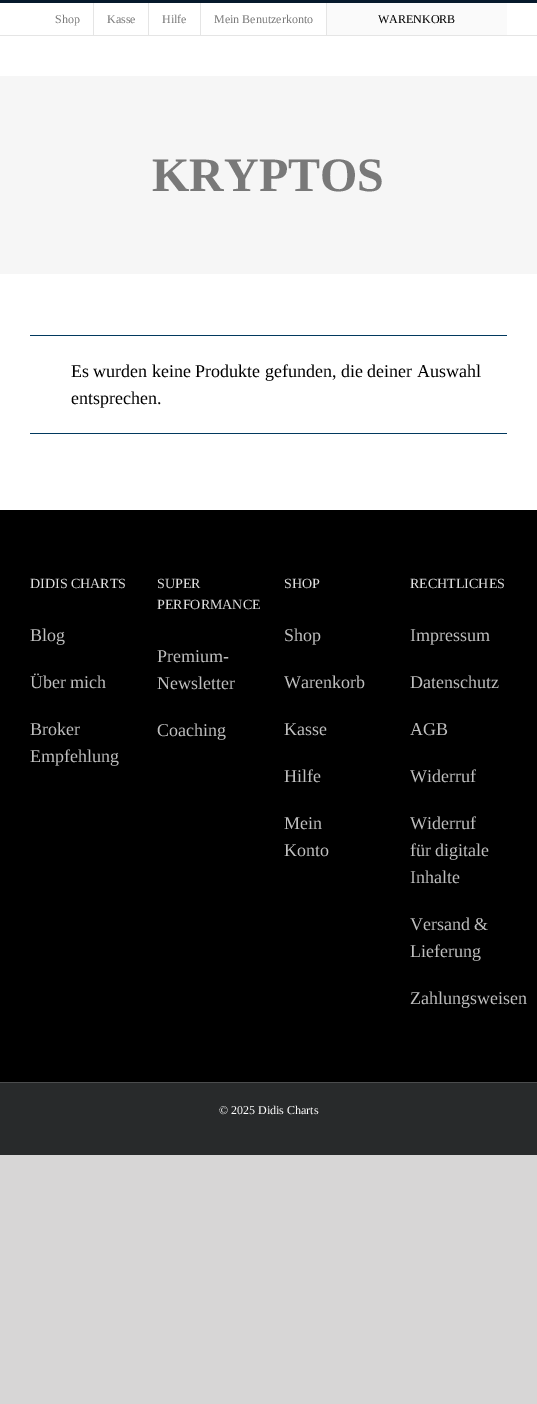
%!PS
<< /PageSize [537 1404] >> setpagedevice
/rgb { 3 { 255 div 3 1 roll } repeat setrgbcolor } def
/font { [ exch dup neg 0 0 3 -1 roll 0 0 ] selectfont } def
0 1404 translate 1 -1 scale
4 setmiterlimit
215 214 214 rgb
0 0 537 1404 rectfill
[
  [0 3 537 507 255 255 255]
  [0 0 537 3 6 25 44]
  [0 35 537 1 229 229 229]
  [93 3 1 32 229 229 229]
  [148 3 1 32 229 229 229]
  [200 3 1 32 229 229 229]
  [326 3 1 32 229 229 229]
  [327 3 180 32 250 250 250]
  [0 76 537 198 246 246 246]
  [30 335 477 1 1 57 94]
  [30 433 477 1 1 57 94]
  [0 510 537 572 0 0 0]
  [0 1083 537 72 40 42 43]
  [0 1082 537 1 75 76 77]
] { aload pop rgb rectfill } forall
/LiberationSerif-Regular 12 font
121 121 121 rgb
[
  [(Shop) 55 23]
  [(Kasse) 107 23]
  [(Hilfe) 162 23]
  [(Mein Benutzerkonto) 214 23]
] { aload pop moveto show } forall
0 0 0 rgb
378 23 moveto (WARENKORB) show
/LiberationSerif-Bold 48 font
121 121 121 rgb
152 191 moveto (KRYPTOS) show
/LiberationSerif-Regular 18 font
0 0 0 rgb
71 377 moveto (Es wurden keine Produkte gefunden, die deiner Auswahl) show
71 404 moveto (entsprechen.) show
/LiberationSerif-Regular 14 font
221 221 221 rgb
30 588 moveto (DIDIS CHARTS) show
/LiberationSerif-Regular 18 font
191 191 191 rgb
[
  [(Blog) 30 641]
  [(Über mich) 30 688]
  [(Broker) 30 735]
  [(Empfehlung) 30 762]
] { aload pop moveto show } forall
/LiberationSerif-Regular 14 font
221 221 221 rgb
157 588 moveto (SUPER) show
157 609 moveto (PERFORMANCE) show
/LiberationSerif-Regular 18 font
191 191 191 rgb
[
  [(Premium-) 157 662]
  [(Newsletter) 157 689]
  [(Coaching) 157 736]
] { aload pop moveto show } forall
/LiberationSerif-Regular 14 font
221 221 221 rgb
284 588 moveto (SHOP) show
/LiberationSerif-Regular 18 font
191 191 191 rgb
[
  [(Shop) 284 641]
  [(Warenkorb) 284 688]
  [(Kasse) 284 735]
  [(Hilfe) 284 782]
  [(Mein) 284 829]
  [(Konto) 284 856]
] { aload pop moveto show } forall
/LiberationSerif-Regular 14 font
221 221 221 rgb
410 588 moveto (RECHTLICHES) show
/LiberationSerif-Regular 18 font
191 191 191 rgb
[
  [(Impressum) 410 641]
  [(Datenschutz) 410 688]
  [(AGB) 410 735]
  [(Widerruf) 410 782]
  [(Widerruf) 410 829]
  [(für digitale) 410 856]
  [(Inhalte) 410 883]
  [(Versand &) 410 930]
  [(Lieferung) 410 957]
  [(Zahlungsweisen) 410 1004]
] { aload pop moveto show } forall
/LiberationSerif-Regular 12 font
255 255 255 rgb
219 1114 moveto (© 2025 Didis Charts) show
showpage
